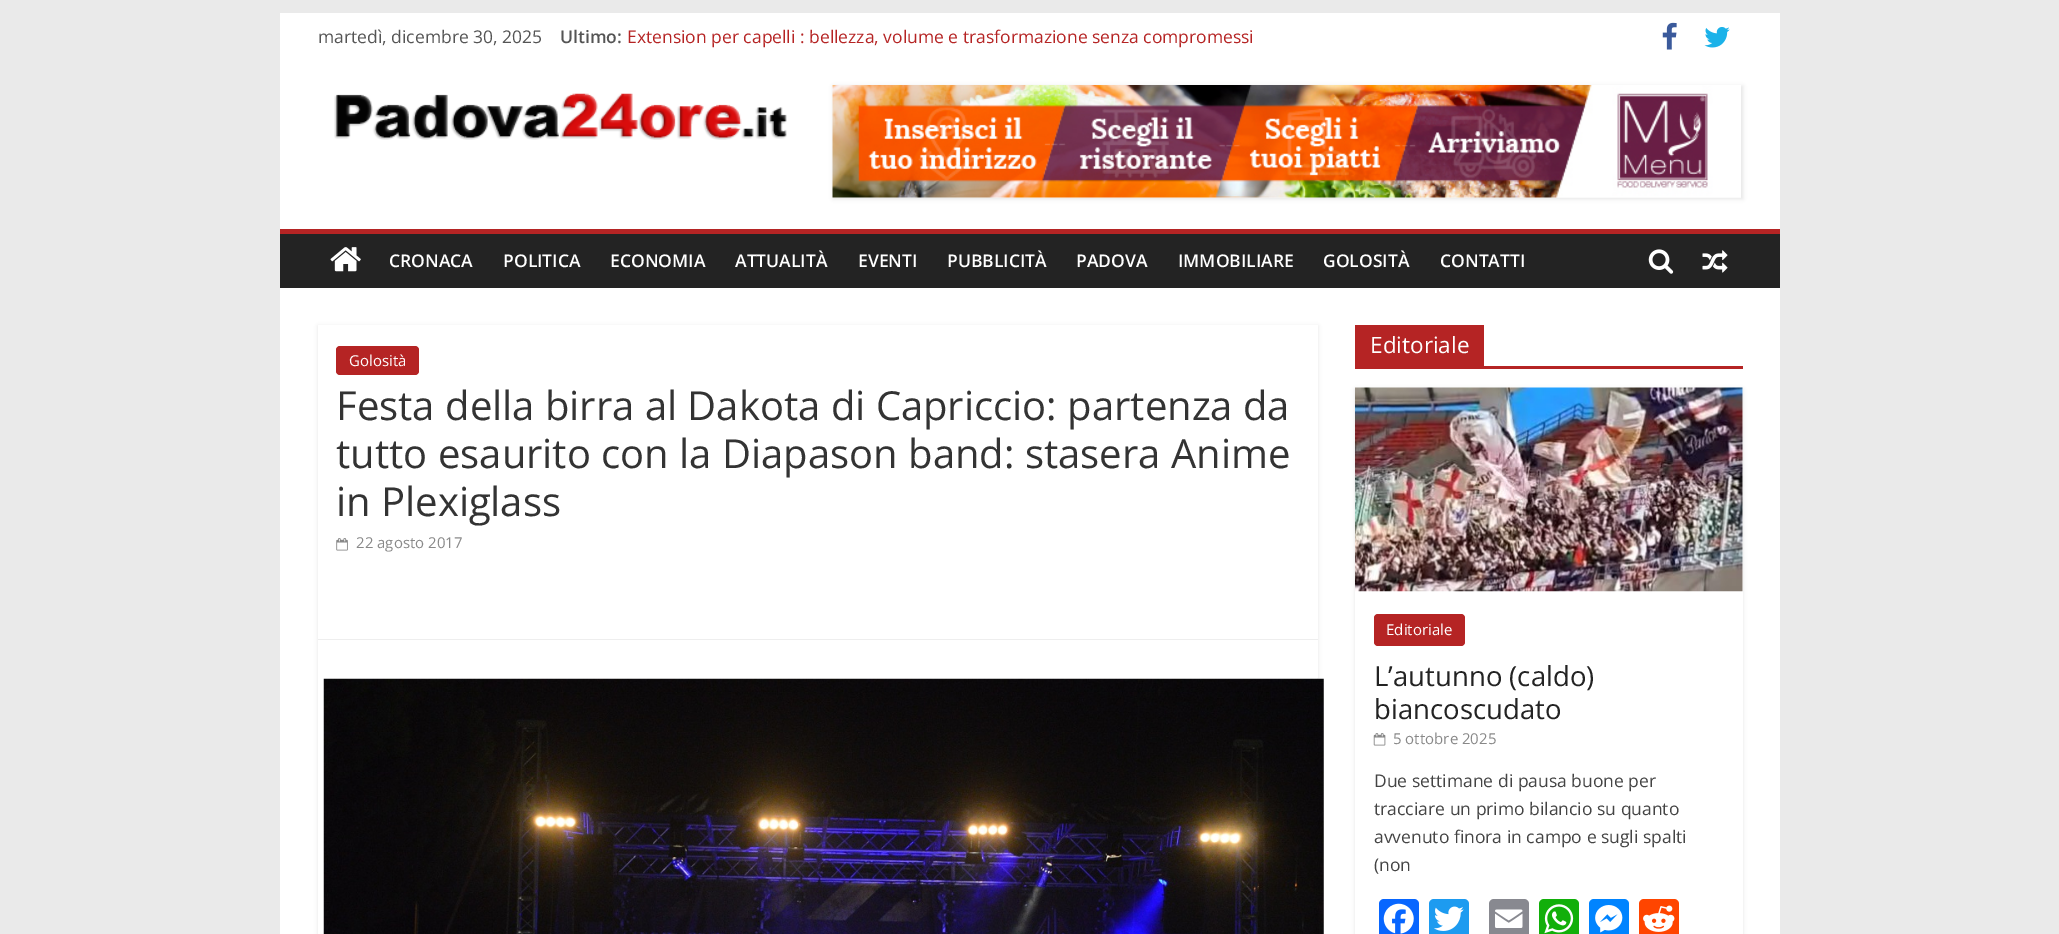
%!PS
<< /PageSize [2059 934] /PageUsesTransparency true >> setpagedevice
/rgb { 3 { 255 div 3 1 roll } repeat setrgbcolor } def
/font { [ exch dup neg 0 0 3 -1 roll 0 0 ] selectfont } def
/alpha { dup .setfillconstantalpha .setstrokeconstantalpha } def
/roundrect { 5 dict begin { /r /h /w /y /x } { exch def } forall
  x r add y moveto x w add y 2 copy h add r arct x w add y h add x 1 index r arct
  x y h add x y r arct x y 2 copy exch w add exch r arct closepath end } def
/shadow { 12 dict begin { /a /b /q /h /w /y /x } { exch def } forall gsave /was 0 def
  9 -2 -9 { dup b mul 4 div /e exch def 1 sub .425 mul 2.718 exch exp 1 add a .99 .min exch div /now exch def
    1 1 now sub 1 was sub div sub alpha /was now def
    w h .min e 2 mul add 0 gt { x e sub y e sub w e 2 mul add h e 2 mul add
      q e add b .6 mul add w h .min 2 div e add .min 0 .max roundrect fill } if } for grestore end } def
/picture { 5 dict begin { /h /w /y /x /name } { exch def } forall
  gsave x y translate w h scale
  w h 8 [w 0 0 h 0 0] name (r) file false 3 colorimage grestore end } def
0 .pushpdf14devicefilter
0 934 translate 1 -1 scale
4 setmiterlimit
234 234 234 rgb
0 0 2059 934 rectfill
255 255 255 rgb
280 13 1500 216 rectfill
(img/1.rgb) 1662 22 15 28 picture
(img/2.rgb) 1704 27 26 21 picture
(img/3.rgb) 334 93 453 47 picture
0 0 0 rgb
833 86 910 113 0 2 0.1 shadow
(img/4.rgb) 832 85 909 113 picture
35 35 35 rgb
280 234 1500 54 rectfill
181 36 36 rgb
280 229 1500 5 rectfill
(img/5.rgb) 330 247 31 25 picture
(img/6.rgb) 1648 249 26 25 picture
(img/7.rgb) 1702 250 26 23 picture
255 255 255 rgb
280 288 1500 646 rectfill
gsave
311 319 moveto 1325 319 lineto 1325 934 lineto 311 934 lineto closepath 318 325 moveto 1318 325 lineto 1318 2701 lineto 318 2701 lineto closepath eoclip newpath
0 0 0 rgb
318 326 1000 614 0 2 0.1 shadow
grestore
181 36 36 rgb
336 346 83 29 4 roundrect fill
(img/8.rgb) 336 538 12 13 picture
238 238 238 rgb
318 639 1000 1 rectfill
(img/9.rgb) 323 678 1001 256 picture
181 36 36 rgb
1355 366 388 3 rectfill
1355 325 129 41 rectfill
0 0 0 rgb
1355 389 388 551 0 2 0.1 shadow
255 255 255 rgb
1355 388 388 546 rectfill
(img/10.rgb) 1355 387 388 205 picture
181 36 36 rgb
1374 614 91 32 4 roundrect fill
(img/11.rgb) 1373 733 13 13 picture
8 102 255 rgb
1379 899 40 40 5 roundrect fill
(img/12.rgb) 1383 903 31 31 picture
29 155 240 rgb
1429 899 40 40 5 roundrect fill
(img/13.rgb) 1434 906 30 25 picture
136 137 144 rgb
1489 899 40 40 5 roundrect fill
(img/14.rgb) 1495 909 28 19 picture
18 175 10 rgb
1539 899 40 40 5 roundrect fill
(img/15.rgb) 1544 904 30 30 picture
0 132 255 rgb
1589 899 40 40 5 roundrect fill
(img/16.rgb) 1595 905 28 28 picture
255 69 0 rgb
1639 899 40 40 5 roundrect fill
(img/17.rgb) 1643 905 32 27 picture
/OpenSans-Regular 17.5 font
85 85 85 rgb
318 43 moveto (martedì, dicembre 30, 2025) show
/OpenSans-SemiBold 17.5 font
560 43 moveto (Ultimo:) show
/OpenSans-Regular 17.5 font
181 36 36 rgb
627 43 moveto (Extension per capelli : bellezza, volume e trasformazione senza compromessi) show
/OpenSans-SemiBold 17.5 font
255 255 255 rgb
[
  [(CRONACA) 389 267]
  [(POLITICA) 503 267]
  [(ECONOMIA) 610 267]
  [(ATTUALITÀ) 735 267]
  [(EVENTI) 858 267]
  [(PUBBLICITÀ) 947 267]
  [(PADOVA) 1076 267]
  [(IMMOBILIARE) 1178 267]
  [(GOLOSITÀ) 1323 267]
  [(CONTATTI) 1440 267]
] { aload pop moveto show } forall
/OpenSans-Regular 15 font
349 366 moveto (Golosità) show
/OpenSans-Regular 40 font
51 51 51 rgb
[
  [(Festa della birra al Dakota di Capriccio: partenza da) 336 420]
  [(tutto esaurito con la Diapason band: stasera Anime) 336 468]
  [(in Plexiglass) 336 516]
] { aload pop moveto show } forall
/OpenSans-Regular 15 font
136 136 136 rgb
356 548 moveto (22 agosto 2017) show
/OpenSans-Regular 22.5 font
255 255 255 rgb
1370 353 moveto (Editoriale) show
/OpenSans-Regular 15 font
1386 635 moveto (Editoriale) show
/OpenSans-Regular 27.5 font
35 35 35 rgb
1374 686 moveto (L’autunno \(caldo\)) show
1374 719 moveto (biancoscudato) show
/OpenSans-Regular 15 font
136 136 136 rgb
1393 744 moveto (5 ottobre 2025) show
/OpenSans-Regular 17.5 font
68 68 68 rgb
[
  [(Due settimane di pausa buone per) 1374 787]
  [(tracciare un primo bilancio su quanto) 1374 815]
  [(avvenuto finora in campo e sugli spalti) 1374 843]
  [(\(non) 1374 871]
] { aload pop moveto show } forall
.poppdf14devicefilter showpage
